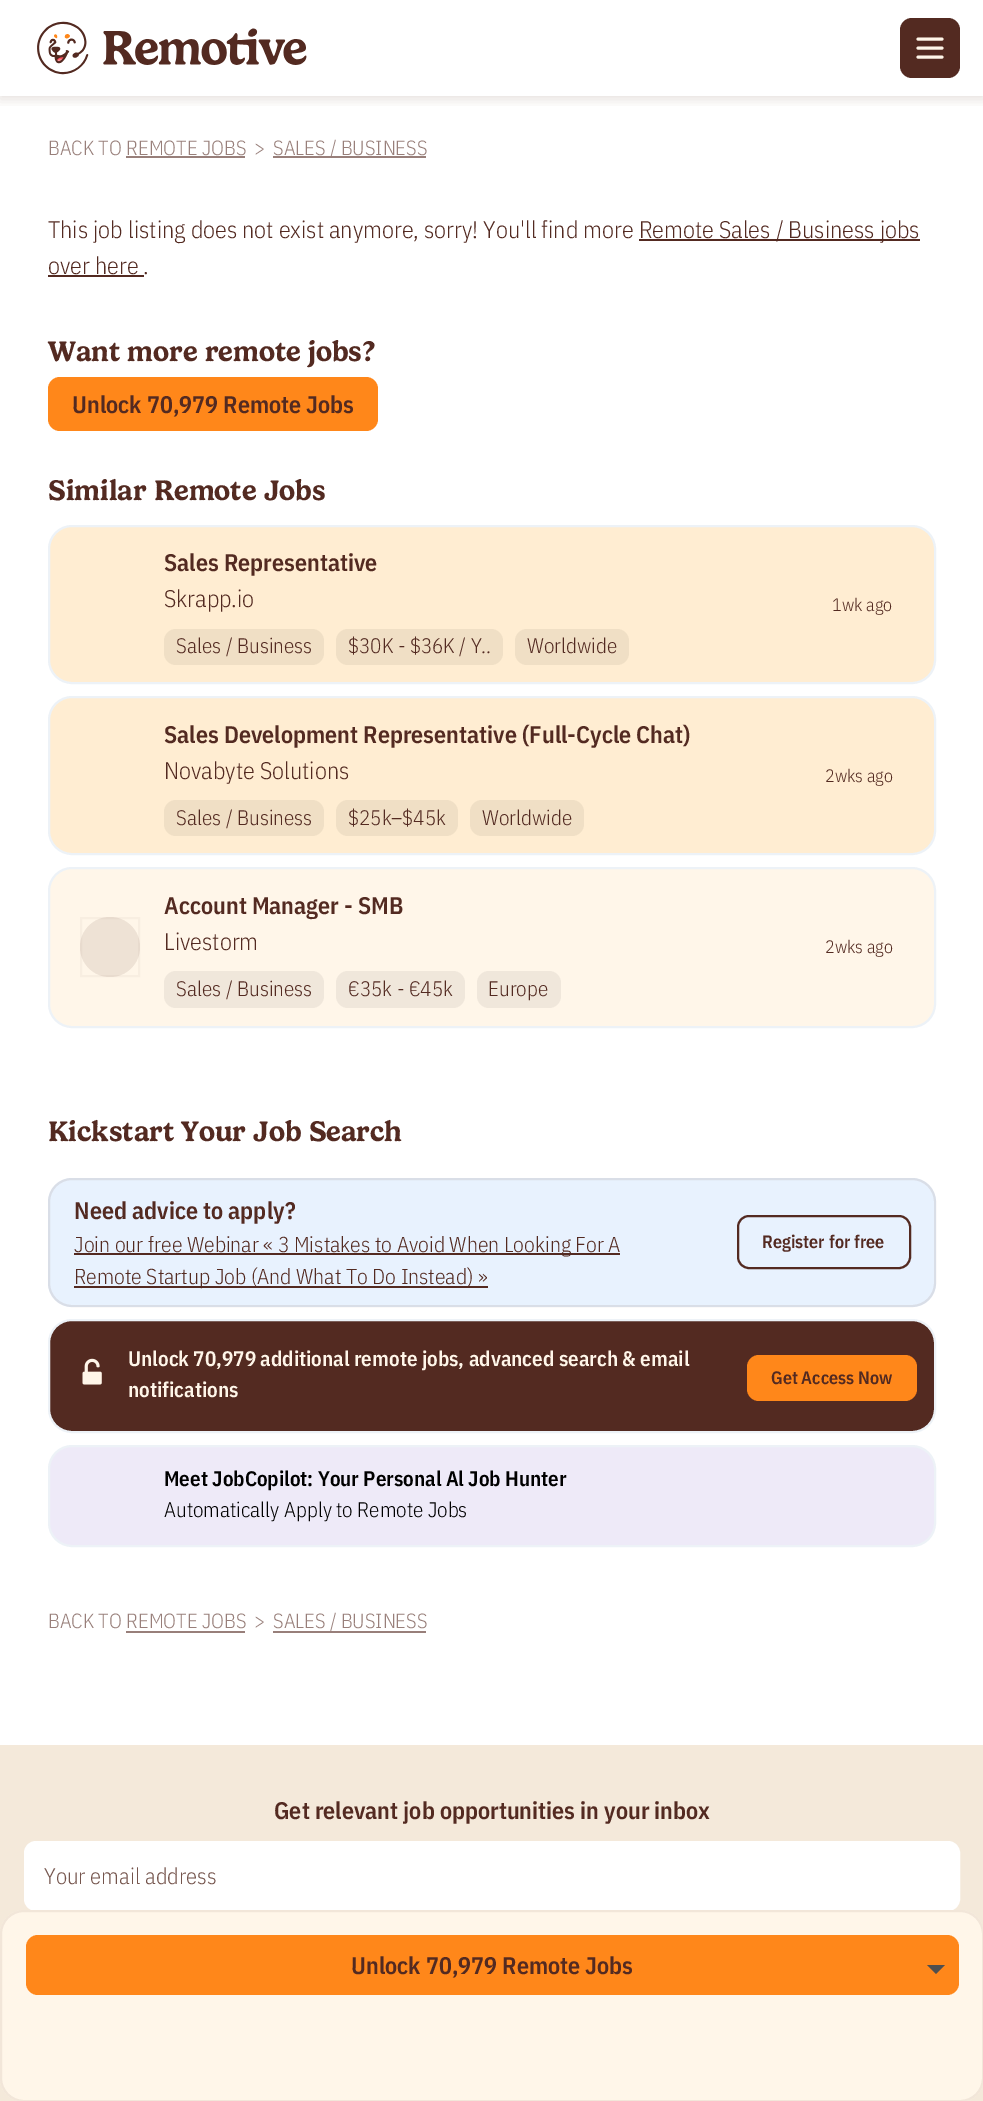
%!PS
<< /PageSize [983 2101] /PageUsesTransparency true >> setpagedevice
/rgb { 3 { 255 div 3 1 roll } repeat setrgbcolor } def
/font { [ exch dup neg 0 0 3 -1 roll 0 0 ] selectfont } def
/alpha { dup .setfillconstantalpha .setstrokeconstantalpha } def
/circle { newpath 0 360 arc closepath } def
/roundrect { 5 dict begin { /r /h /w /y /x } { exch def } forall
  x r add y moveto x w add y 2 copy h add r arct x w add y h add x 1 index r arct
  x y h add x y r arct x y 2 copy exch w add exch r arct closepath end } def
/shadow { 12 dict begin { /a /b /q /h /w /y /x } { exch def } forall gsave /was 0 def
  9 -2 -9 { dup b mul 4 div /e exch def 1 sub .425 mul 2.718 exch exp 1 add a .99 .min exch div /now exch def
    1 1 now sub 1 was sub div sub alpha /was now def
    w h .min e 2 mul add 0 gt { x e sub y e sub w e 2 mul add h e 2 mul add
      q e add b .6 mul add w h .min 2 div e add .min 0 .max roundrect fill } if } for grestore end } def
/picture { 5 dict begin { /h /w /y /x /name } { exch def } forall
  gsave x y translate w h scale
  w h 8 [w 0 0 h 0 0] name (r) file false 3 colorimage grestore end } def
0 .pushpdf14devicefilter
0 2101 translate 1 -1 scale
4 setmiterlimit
255 255 255 rgb
0 0 983 2101 rectfill
gsave
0 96 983 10 rectclip
83 42 33 rgb
0 3 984 96 0 6 0.15 shadow
grestore
(img/1.rgb) 37 21 270 54 picture
83 42 33 rgb
900 18 60 60 12 roundrect fill
255 246 233 rgb
3 setlinewidth
1 setlinecap
1 setlinejoin
918 39 moveto 942 39 lineto 918 48 moveto 942 48 lineto 918 57 moveto 942 57 lineto stroke
[
  [273 156 153 2 152 127 122]
  [126 156 119 2 152 127 122]
  [639 239 281 2 83 42 33]
  [48 275 96 2 83 42 33]
] { aload pop rgb rectfill } forall
255 135 26 rgb
48 377 330 54 12 roundrect fill
255 237 210 rgb
49 526 886 157 23 roundrect gsave fill grestore
237 242 247 rgb
2 setlinewidth
0 setlinecap
0 setlinejoin
stroke
240 223 197 rgb
164 629 160 36 12 roundrect fill
336 629 167 36 12 roundrect fill
515 629 114 36 12 roundrect fill
255 237 210 rgb
49 697 886 157 23 roundrect gsave fill grestore
237 242 247 rgb
stroke
240 223 197 rgb
164 800 160 36 12 roundrect fill
336 800 122 36 12 roundrect fill
470 800 114 36 12 roundrect fill
255 246 233 rgb
49 868 886 159 23 roundrect gsave fill grestore
237 242 247 rgb
stroke
238 226 213 rgb
110 947 30 circle fill
0.04 alpha
83 42 33 rgb
81 918 58 58 rectstroke
1 alpha
240 231 219 rgb
164 971 160 37 12 roundrect fill
336 971 129 37 12 roundrect fill
477 971 84 37 12 roundrect fill
232 242 254 rgb
48 1178 888 129 24 roundrect fill
0.1 alpha
83 42 33 rgb
49 1179 886 127 23 roundrect stroke
1 alpha
74 1253 546 2 rectfill
74 1286 414 2 rectfill
738 1216 172 52 11 roundrect stroke
49 1320 886 112 23 roundrect gsave fill grestore
237 242 247 rgb
stroke
(img/2.rgb) 82 1358 20 27 picture
255 135 26 rgb
747 1355 170 46 12 roundrect fill
238 234 248 rgb
49 1446 886 100 23 roundrect gsave fill grestore
237 242 247 rgb
stroke
[
  [273 1631 153 2 152 127 122]
  [126 1631 119 2 152 127 122]
  [0 1745 983 356 244 233 218]
] { aload pop rgb rectfill } forall
255 255 255 rgb
25 1842 934 68 11 roundrect gsave fill grestore
stroke
255 246 233 rgb
0 1910 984 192 24 roundrect fill
0.08 alpha
83 42 33 rgb
1 1911 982 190 23 roundrect stroke
1 alpha
255 135 26 rgb
26 1935 933 60 12 roundrect fill
79 79 79 rgb
927 1965 moveto 945 1965 lineto 936 1974 lineto closepath fill
/IBMPlexSansCondensed-Light 20.5 font
152 127 122 rgb
[
  [(BACK TO REMOTE JOBS) 48 155]
  [(>) 254 155]
  [(SALES / BUSINESS) 273 155]
] { aload pop moveto show } forall
/IBMPlexSansCondensed-Light 24 font
83 42 33 rgb
[
  [(This job listing does not exist anymore, sorry! You'll find more Remote) 48 238]
  [(Sales / Business jobs) 719 238]
  [(over here .) 48 274]
] { aload pop moveto show } forall
/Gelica-SemiBold 28.75 font
48 361 moveto (Want more remote jobs?) show
/IBMPlexSansCondensed-SemiBold 24 font
72 413 moveto (Unlock 70,979 Remote Jobs) show
/Gelica-SemiBold 28.75 font
48 500 moveto (Similar Remote Jobs) show
/IBMPlexSansCondensed-SemiBold 24 font
164 571 moveto (Sales Representative) show
/IBMPlexSansCondensed-Light 24 font
164 607 moveto (Skrapp.io) show
/IBMPlexSansCondensed-Light 21 font
[
  [(Sales / Business) 176 653]
  [($30K - $36K / Y..) 348 653]
  [(Worldwide) 527 653]
] { aload pop moveto show } forall
/IBMPlexSansCondensed-Light 18 font
832 611 moveto (1wk ago) show
/IBMPlexSansCondensed-SemiBold 24 font
164 743 moveto (Sales Development Representative \(Full-Cycle Chat\)) show
/IBMPlexSansCondensed-Light 24 font
164 779 moveto (Novabyte Solutions) show
/IBMPlexSansCondensed-Light 21 font
[
  [(Sales / Business) 176 825]
  [($25k–$45k) 348 825]
  [(Worldwide) 482 825]
] { aload pop moveto show } forall
/IBMPlexSansCondensed-Light 18 font
825 782 moveto (2wks ago) show
/IBMPlexSansCondensed-SemiBold 24 font
164 914 moveto (Account Manager - SMB) show
/IBMPlexSansCondensed-Light 24 font
164 950 moveto (Livestorm) show
/IBMPlexSansCondensed-Light 21 font
[
  [(Sales / Business) 176 996]
  [(€35k - €45k) 348 996]
  [(Europe) 488 996]
] { aload pop moveto show } forall
/IBMPlexSansCondensed-Light 18 font
825 953 moveto (2wks ago) show
/Gelica-SemiBold 28.75 font
48 1141 moveto (Kickstart Your Job Search) show
/IBMPlexSansCondensed-SemiBold 24 font
74 1219 moveto (Need advice to apply?) show
/IBMPlexSansCondensed-Light 21.6 font
74 1252 moveto (Join our free Webinar « 3 Mistakes to Avoid When Looking For A) show
74 1284 moveto (Remote Startup Job \(And What To Do Instead\) ») show
/IBMPlexSansCondensed-SemiBold 18 font
762 1248 moveto (Register for free) show
/IBMPlexSansCondensed-SemiBold 21 font
255 246 233 rgb
128 1366 moveto (Unlock 70,979 additional remote jobs, advanced search & email) show
128 1397 moveto (notifications) show
/IBMPlexSansCondensed-SemiBold 18 font
83 42 33 rgb
771 1384 moveto (Get Access Now) show
/IBMPlexSansCondensed-SemiBold 21 font
0 0 0 rgb
164 1486 moveto (Meet JobCopilot: Your Personal Al Job Hunter) show
/IBMPlexSansCondensed-Light 21 font
164 1517 moveto (Automatically Apply to Remote Jobs) show
/IBMPlexSansCondensed-Light 20.5 font
152 127 122 rgb
[
  [(BACK TO REMOTE JOBS) 48 1628]
  [(>) 254 1628]
  [(SALES / BUSINESS) 273 1628]
] { aload pop moveto show } forall
/IBMPlexSansCondensed-SemiBold 24 font
83 42 33 rgb
351 1974 moveto (Unlock 70,979 Remote Jobs) show
274 1819 moveto (Get relevant job opportunities in your inbox) show
/IBMPlexSansCondensed-Light 22.5 font
117 85 77 rgb
44 1884 moveto (Your email address) show
.poppdf14devicefilter showpage
